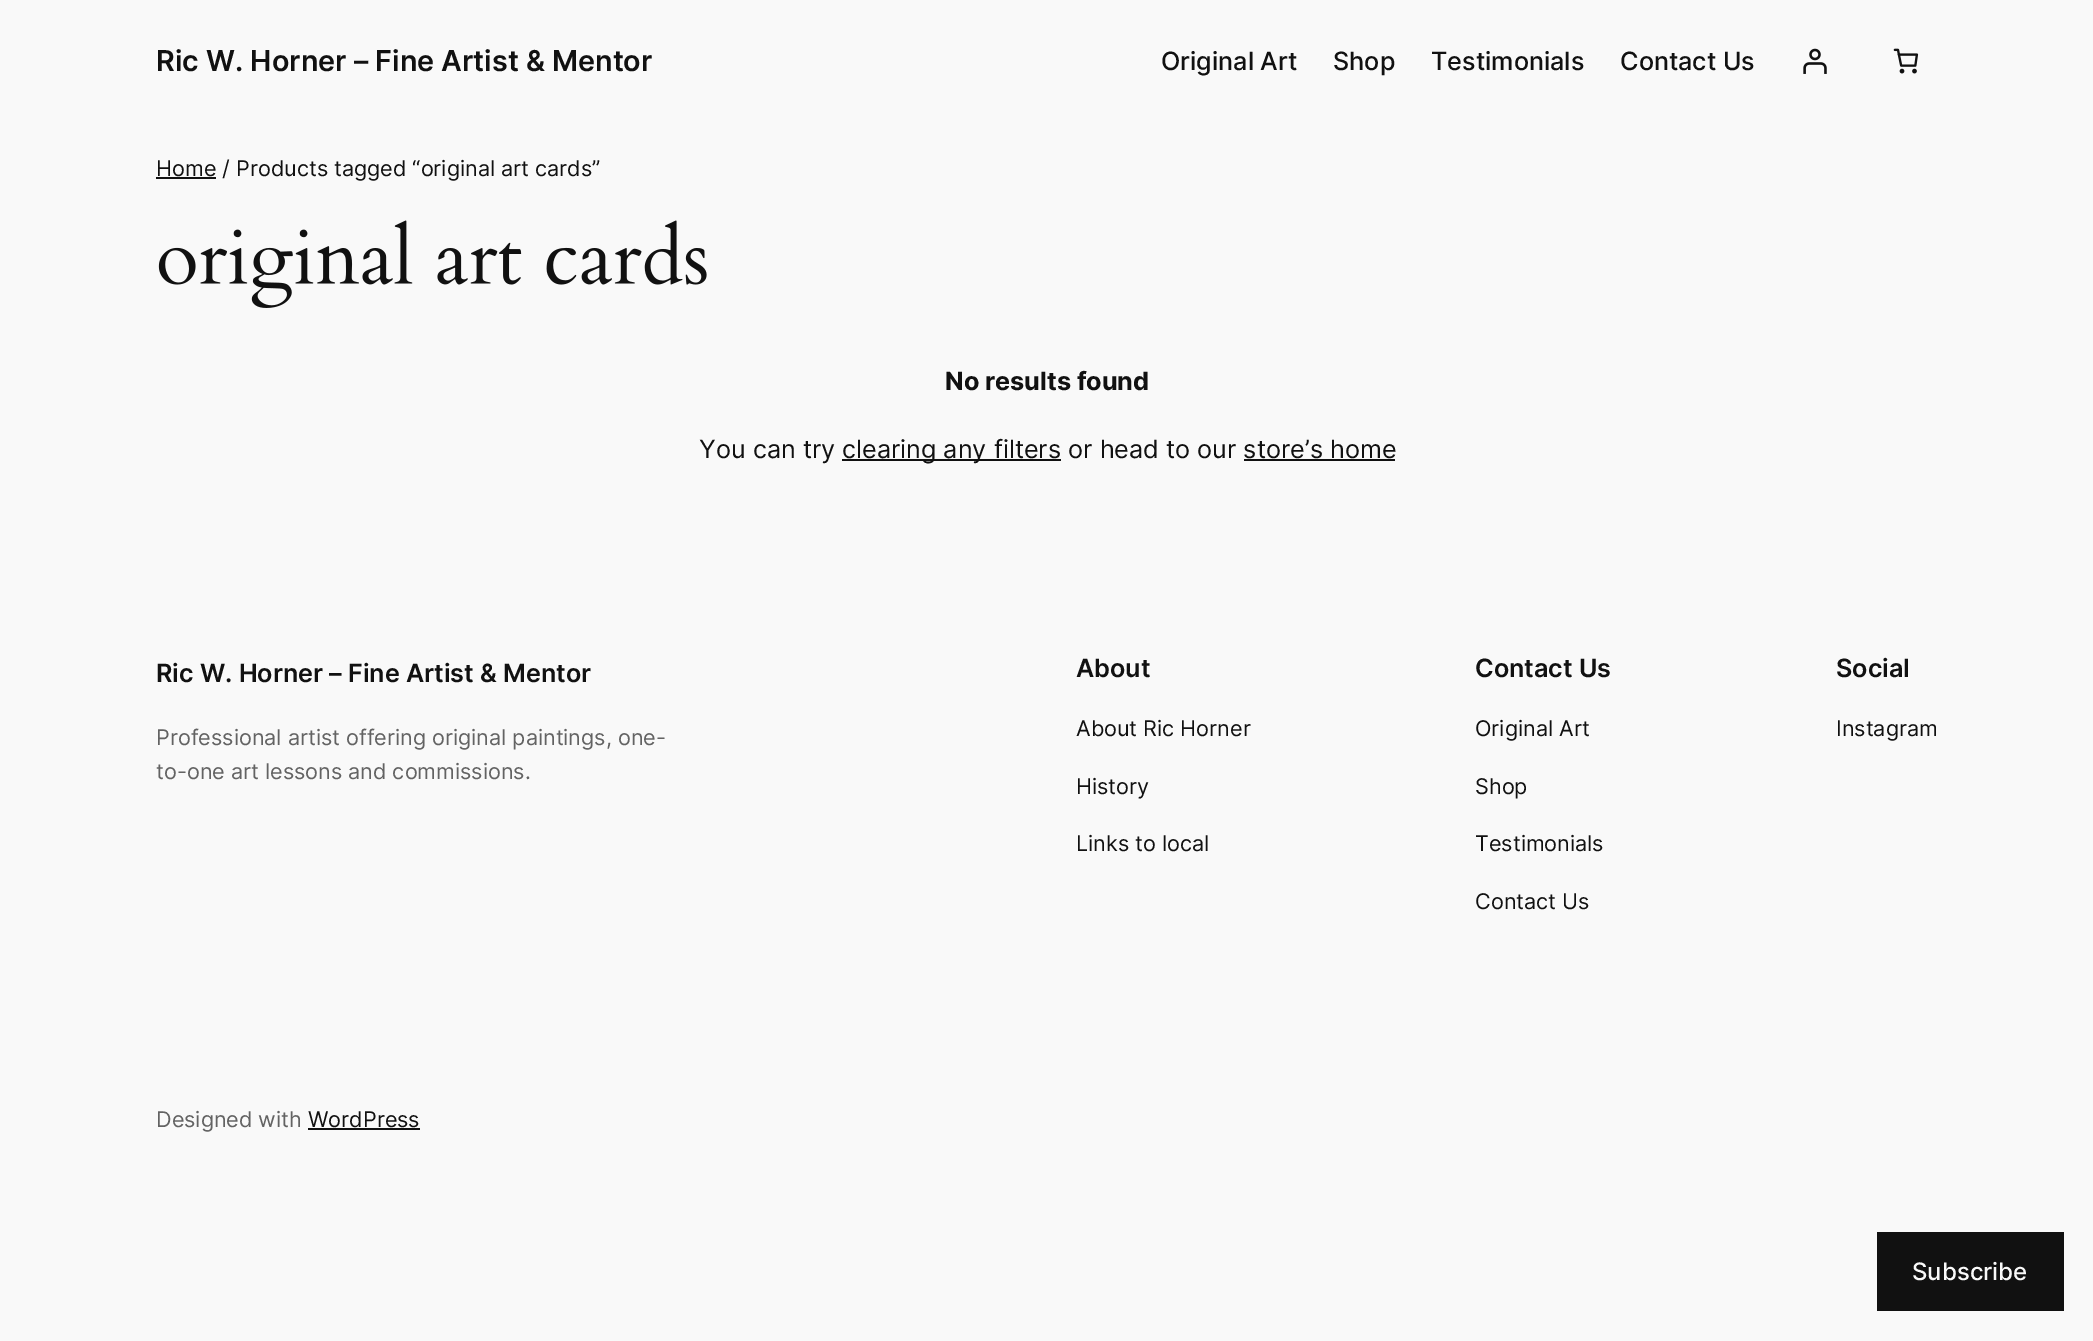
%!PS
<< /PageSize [2093 1341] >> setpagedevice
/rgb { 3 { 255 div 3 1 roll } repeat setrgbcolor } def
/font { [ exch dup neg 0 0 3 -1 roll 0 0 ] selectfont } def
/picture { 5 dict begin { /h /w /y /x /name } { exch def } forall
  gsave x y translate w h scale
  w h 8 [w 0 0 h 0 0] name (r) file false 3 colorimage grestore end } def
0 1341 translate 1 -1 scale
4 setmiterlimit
249 249 249 rgb
0 0 2093 1341 rectfill
(img/1.rgb) 1803 48 24 26 picture
(img/2.rgb) 1893 48 26 26 picture
17 17 17 rgb
156 177 60 2 rectfill
(img/3.rgb) 158 220 549 88 picture
[
  [842 459 219 2 17 17 17]
  [1244 459 151 2 17 17 17]
  [308 1128 112 2 17 17 17]
  [1877 1232 187 79 17 17 17]
] { aload pop rgb rectfill } forall
/Inter-SemiBold 28.75 font
156 71 moveto (Ric W. Horner – Fine Artist & Mentor) show
/Inter-Medium 25.2 font
[
  [(Original Art) 1161 70]
  [(Shop) 1333 70]
  [(Testimonials) 1431 70]
  [(Contact Us) 1620 70]
] { aload pop moveto show } forall
/Inter-Regular 21.6 font
156 176 moveto (Home / Products tagged “original art cards”) show
/Inter-Bold 25.2 font
945 390 moveto (No results found) show
/Inter-Regular 25.2 font
699 458 moveto (You can try) show
842 458 moveto (clearing any filters or head to our store’s home) show
/Inter-SemiBold 25.2 font
156 682 moveto (Ric W. Horner – Fine Artist & Mentor) show
/Inter-Regular 21.6 font
99 99 99 rgb
156 745 moveto (Professional artist offering original paintings, one-) show
156 779 moveto (to-one art lessons and commissions.) show
/Inter-SemiBold 25.2 font
17 17 17 rgb
1076 677 moveto (About) show
/Inter-Regular 21.6 font
[
  [(About Ric Horner) 1076 736]
  [(History) 1076 794]
  [(Links to local) 1076 851]
] { aload pop moveto show } forall
/Inter-SemiBold 25.2 font
1475 677 moveto (Contact Us) show
/Inter-Regular 21.6 font
[
  [(Original Art) 1475 736]
  [(Shop) 1475 794]
  [(Testimonials) 1475 851]
  [(Contact Us) 1475 909]
] { aload pop moveto show } forall
/Inter-SemiBold 25.2 font
1836 677 moveto (Social) show
/Inter-Regular 21.6 font
1836 736 moveto (Instagram) show
99 99 99 rgb
156 1127 moveto (Designed with) show
17 17 17 rgb
308 1127 moveto (WordPress) show
/Inter-Medium 24 font
249 249 249 rgb
1912 1280 moveto (Subscribe) show
showpage
